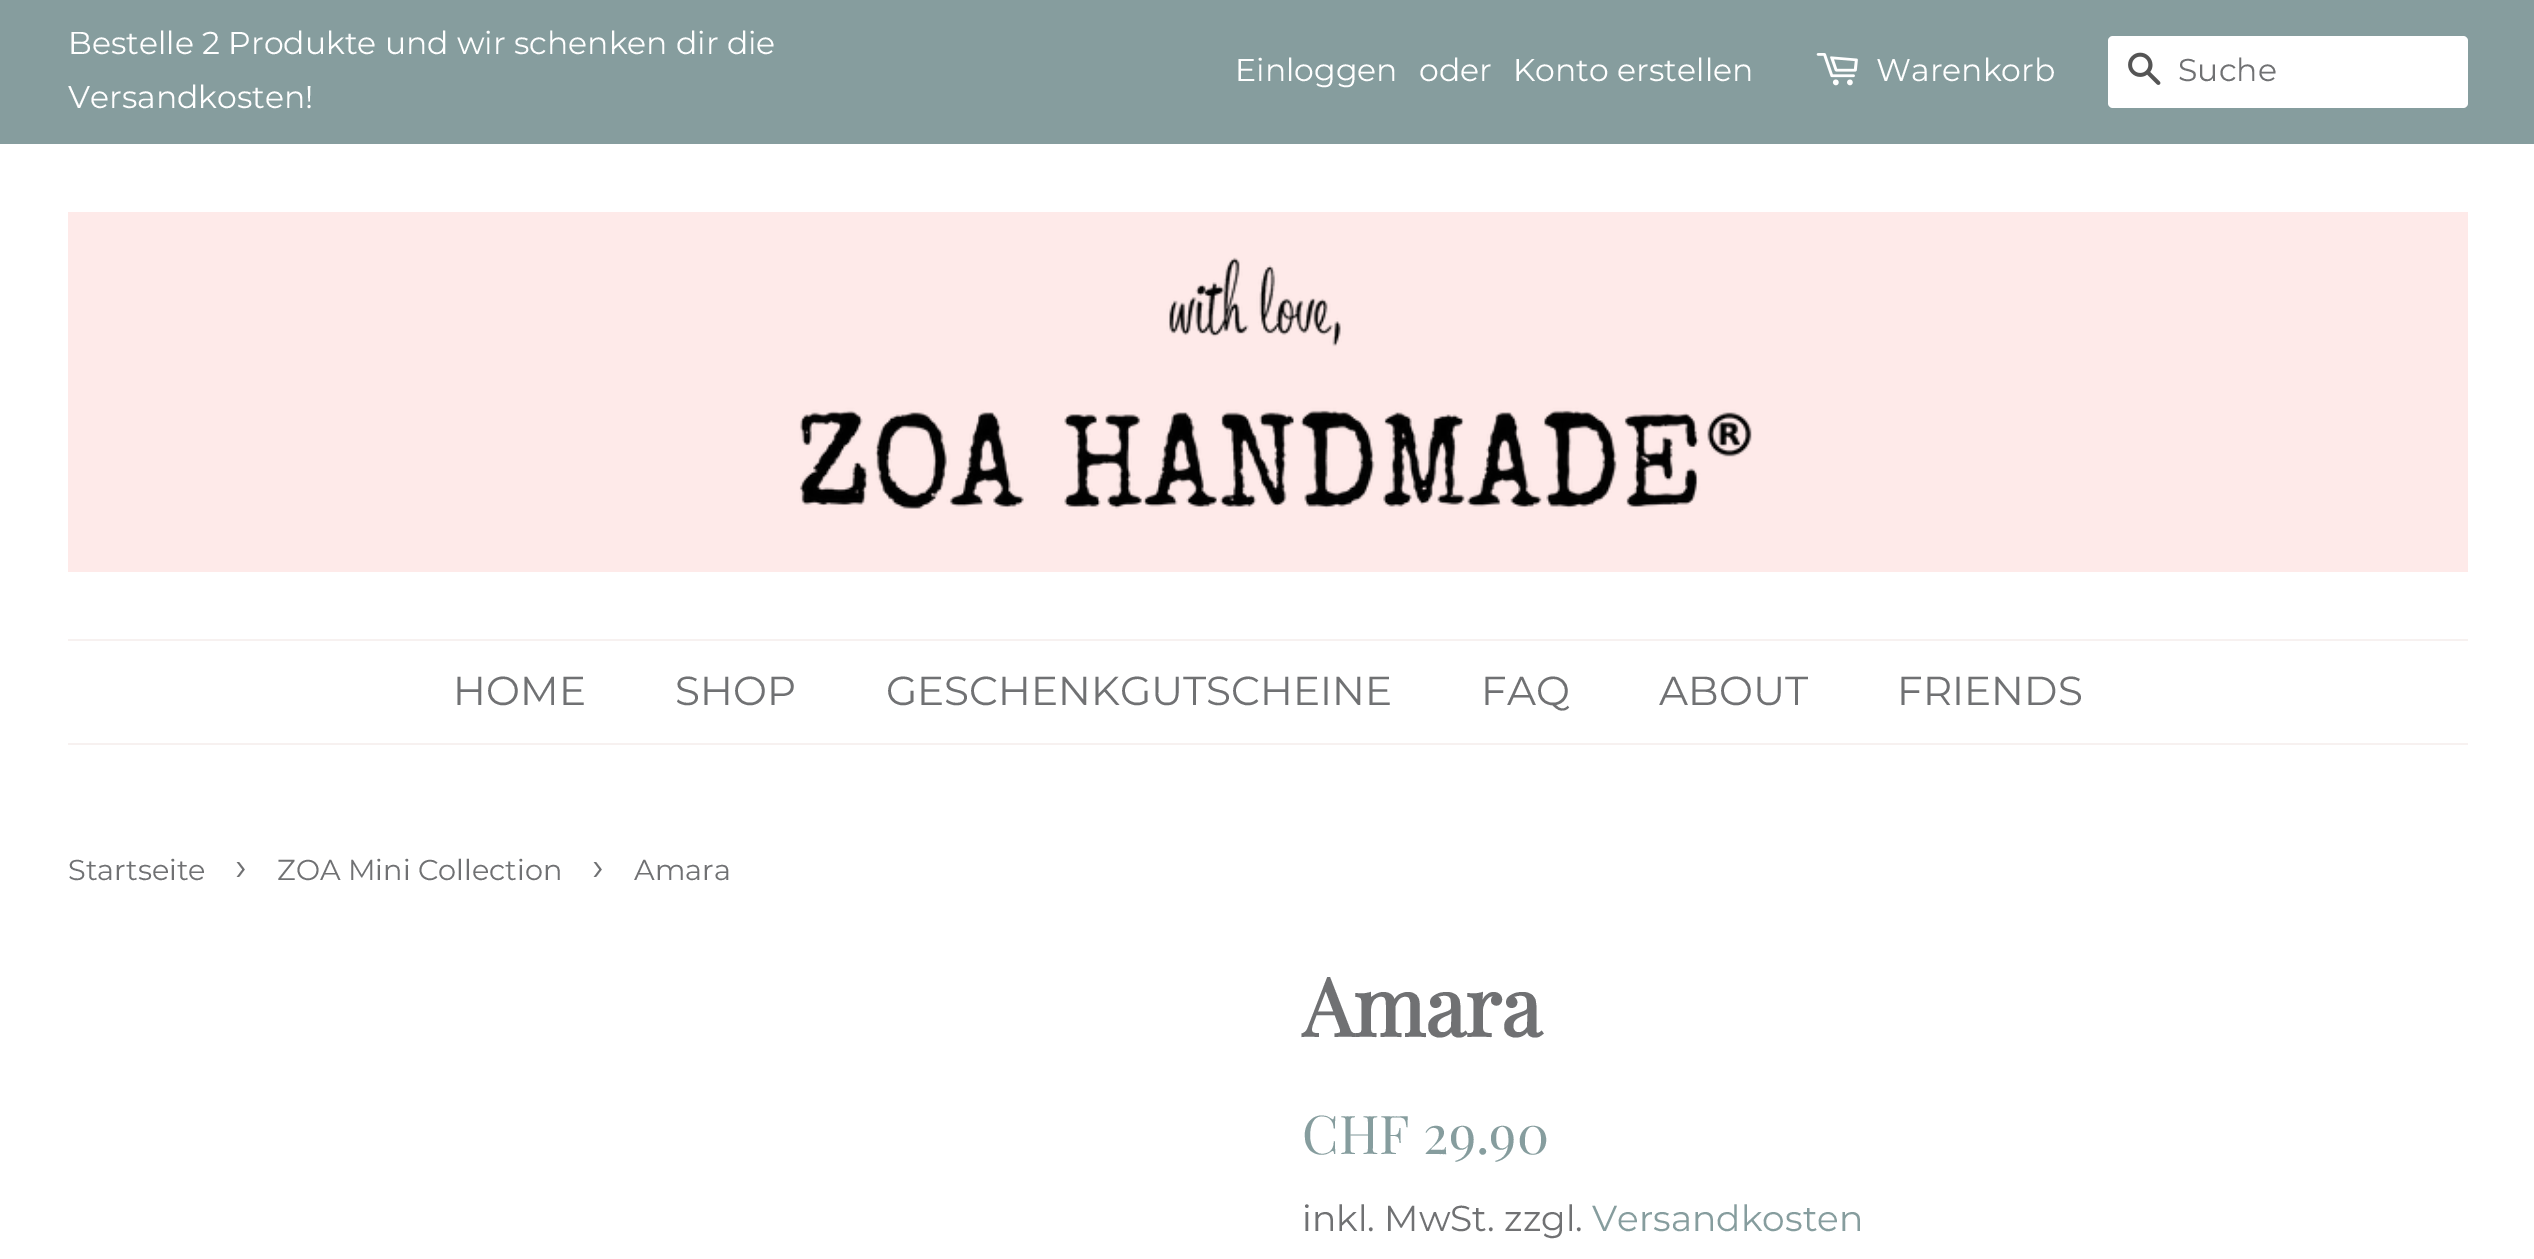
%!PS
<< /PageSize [2534 1259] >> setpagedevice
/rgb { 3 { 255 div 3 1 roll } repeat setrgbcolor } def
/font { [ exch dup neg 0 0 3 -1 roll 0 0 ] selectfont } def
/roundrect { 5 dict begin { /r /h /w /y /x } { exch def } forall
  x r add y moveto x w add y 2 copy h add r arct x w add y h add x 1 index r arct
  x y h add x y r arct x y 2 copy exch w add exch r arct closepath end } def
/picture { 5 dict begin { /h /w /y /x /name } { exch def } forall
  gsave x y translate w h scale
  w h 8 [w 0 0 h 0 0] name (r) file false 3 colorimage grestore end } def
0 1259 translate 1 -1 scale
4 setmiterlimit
255 255 255 rgb
0 0 2534 1259 rectfill
134 157 158 rgb
0 0 2534 144 rectfill
(img/1.rgb) 1816 53 42 33 picture
255 255 255 rgb
2108 36 360 72 5 roundrect fill
(img/2.rgb) 2128 52 33 33 picture
254 234 233 rgb
68 212 2400 360 rectfill
(img/3.rgb) 799 257 953 252 picture
247 241 240 rgb
68 639 2400 2 rectfill
68 743 2400 2 rectfill
/Montserrat-Regular 31.5 font
255 255 255 rgb
[
  [(Bestelle 2 Produkte und wir schenken dir die) 68 54]
  [(Versandkosten!) 68 108]
  [(Einloggen) 1235 81]
  [(oder) 1419 81]
  [(Konto erstellen) 1513 81]
  [(Warenkorb) 1876 81]
] { aload pop moveto show } forall
112 113 115 rgb
2178 81 moveto (Suche) show
/Montserrat-Regular 40.5 font
[
  [(HOME) 453 705]
  [(SHOP) 675 705]
  [(GESCHENKGUTSCHEINE) 886 705]
  [(FAQ) 1481 705]
  [(ABOUT) 1659 705]
  [(FRIENDS) 1897 705]
] { aload pop moveto show } forall
/Montserrat-Regular 28.75 font
68 880 moveto (Startseite) show
/Montserrat-Regular 40 font
235 880 moveto (›) show
/Montserrat-Regular 28.75 font
277 880 moveto (ZOA Mini Collection) show
/Montserrat-Regular 40 font
592 880 moveto (›) show
/Montserrat-Regular 28.75 font
634 880 moveto (Amara) show
/PlayfairDisplay-Bold 81 font
1302 1037 moveto (Amara) show
/PlayfairDisplay-Regular 53.5 font
134 157 158 rgb
1302 1154 moveto (CHF 29.90) show
/Montserrat-Regular 36 font
112 113 115 rgb
1302 1231 moveto (inkl. MwSt. zzgl.) show
134 157 158 rgb
1592 1231 moveto (Versandkosten) show
showpage
